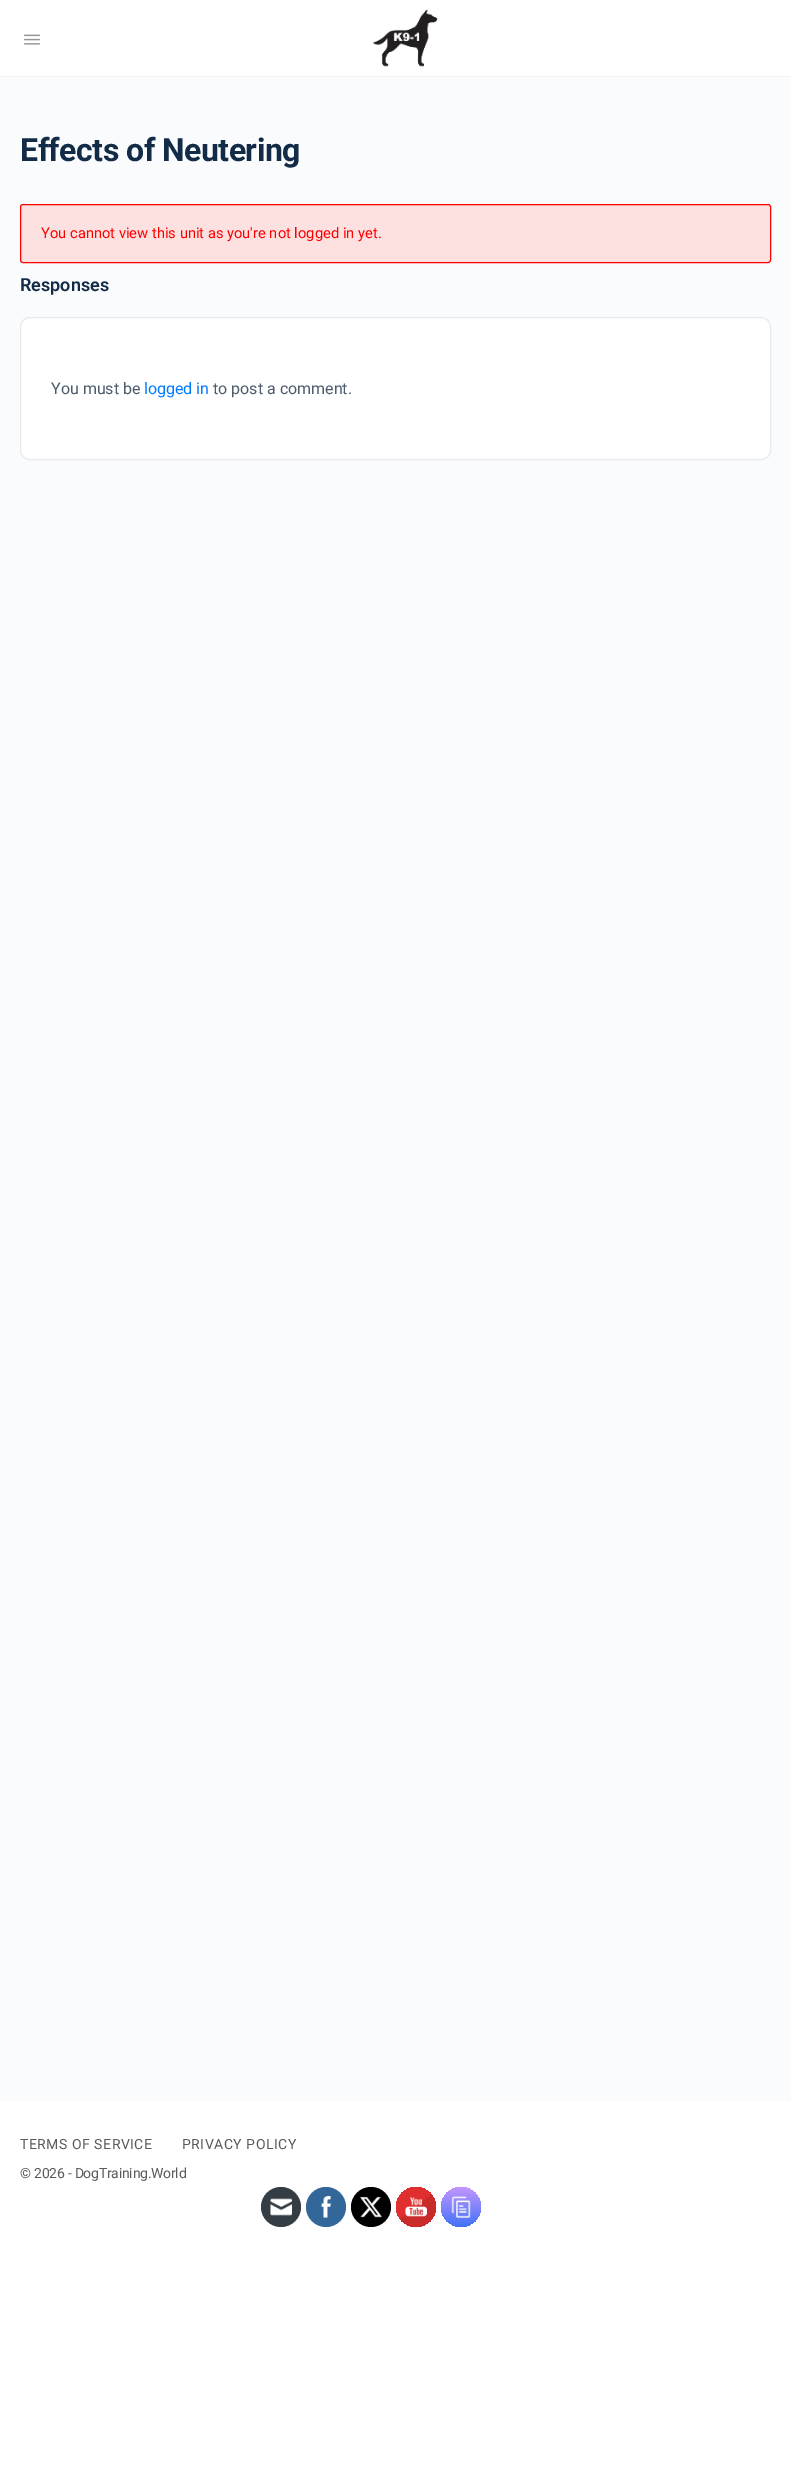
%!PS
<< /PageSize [791 2472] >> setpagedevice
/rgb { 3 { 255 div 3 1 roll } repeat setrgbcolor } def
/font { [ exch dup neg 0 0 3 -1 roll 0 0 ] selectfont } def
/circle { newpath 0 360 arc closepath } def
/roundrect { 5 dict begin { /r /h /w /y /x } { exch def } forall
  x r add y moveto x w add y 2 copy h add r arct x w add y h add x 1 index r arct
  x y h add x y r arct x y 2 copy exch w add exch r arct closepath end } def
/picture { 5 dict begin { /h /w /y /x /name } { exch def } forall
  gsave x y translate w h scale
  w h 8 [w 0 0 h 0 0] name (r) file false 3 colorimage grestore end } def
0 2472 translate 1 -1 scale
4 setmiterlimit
250 251 253 rgb
0 0 791 2472 rectfill
242 243 246 rgb
0 76 791 1 rectfill
255 255 255 rgb
0 0 791 76 rectfill
(img/1.rgb) 24 34 16 11 picture
(img/2.rgb) 373 9 65 58 picture
253 224 224 rgb
20.5 204.5 750 58 2.5 roundrect gsave fill grestore
255 0 0 rgb
stroke
255 255 255 rgb
20.5 317.5 750 142 9.5 roundrect gsave fill grestore
231 233 236 rgb
stroke
255 255 255 rgb
0 2101 791 371 rectfill
52 61 68 rgb
281 2207 20 circle fill
(img/3.rgb) 270 2198 22 18 picture
51 102 153 rgb
326 2207 20 circle fill
(img/4.rgb) 321 2196 10 22 picture
0 0 0 rgb
371 2207 20 circle fill
(img/5.rgb) 360 2196 22 22 picture
gsave 416 2207 20 circle clip newpath
<< /ShadingType 2 /ColorSpace /DeviceRGB /Coords [399 2185 433 2229] /Extend [true true] /Function << /FunctionType 3 /Domain [0 1] /Functions [<< /FunctionType 2 /Domain [0 1] /C0 [0.878 0.184 0.184] /C1 [0.878 0.184 0.184] /N 1 >> << /FunctionType 2 /Domain [0 1] /C0 [0.878 0.184 0.184] /C1 [0.878 0.184 0.184] /N 1 >> << /FunctionType 2 /Domain [0 1] /C0 [0.788 0.165 0.165] /C1 [0.788 0.165 0.165] /N 1 >> << /FunctionType 2 /Domain [0 1] /C0 [0.788 0.165 0.165] /C1 [0.788 0.165 0.165] /N 1 >>] /Bounds [0.14 0.49 0.85] /Encode [0 1 0 1 0 1 0 1] >> >> shfill grestore
(img/6.rgb) 405 2197 22 20 picture
gsave 461 2207 20 circle clip newpath
<< /ShadingType 2 /ColorSpace /DeviceRGB /Coords [461 2187 461 2227] /Extend [true true] /Function << /FunctionType 2 /Domain [0 1] /C0 [0.761 0.584 1] /C1 [0.259 0.451 0.969] /N 1 >> >> shfill grestore
(img/7.rgb) 451 2196 20 22 picture
/Roboto-Bold 32 font
18 43 70 rgb
20 161 moveto -0.5 0 (Effects of Neutering) ashow
/Roboto-Regular 14.7 font
255 0 0 rgb
41 238 moveto (You cannot view this unit as you're not logged in yet.) show
/Roboto-SemiBold 18 font
18 43 70 rgb
20 291 moveto (Responses) show
/Roboto-Regular 16 font
77 92 109 rgb
51 394 moveto (You must be) show
0 124 255 rgb
144 394 moveto (logged in) show
77 92 109 rgb
213 394 moveto (to post a comment.) show
/Roboto-Regular 14 font
90 90 90 rgb
20 2149 moveto 0.5 0 (TERMS OF SERVICE) ashow
182 2149 moveto 0.5 0 (PRIVACY POLICY) ashow
20 2178 moveto -0.25 0 (© 2026 - DogTraining.World) ashow
showpage
